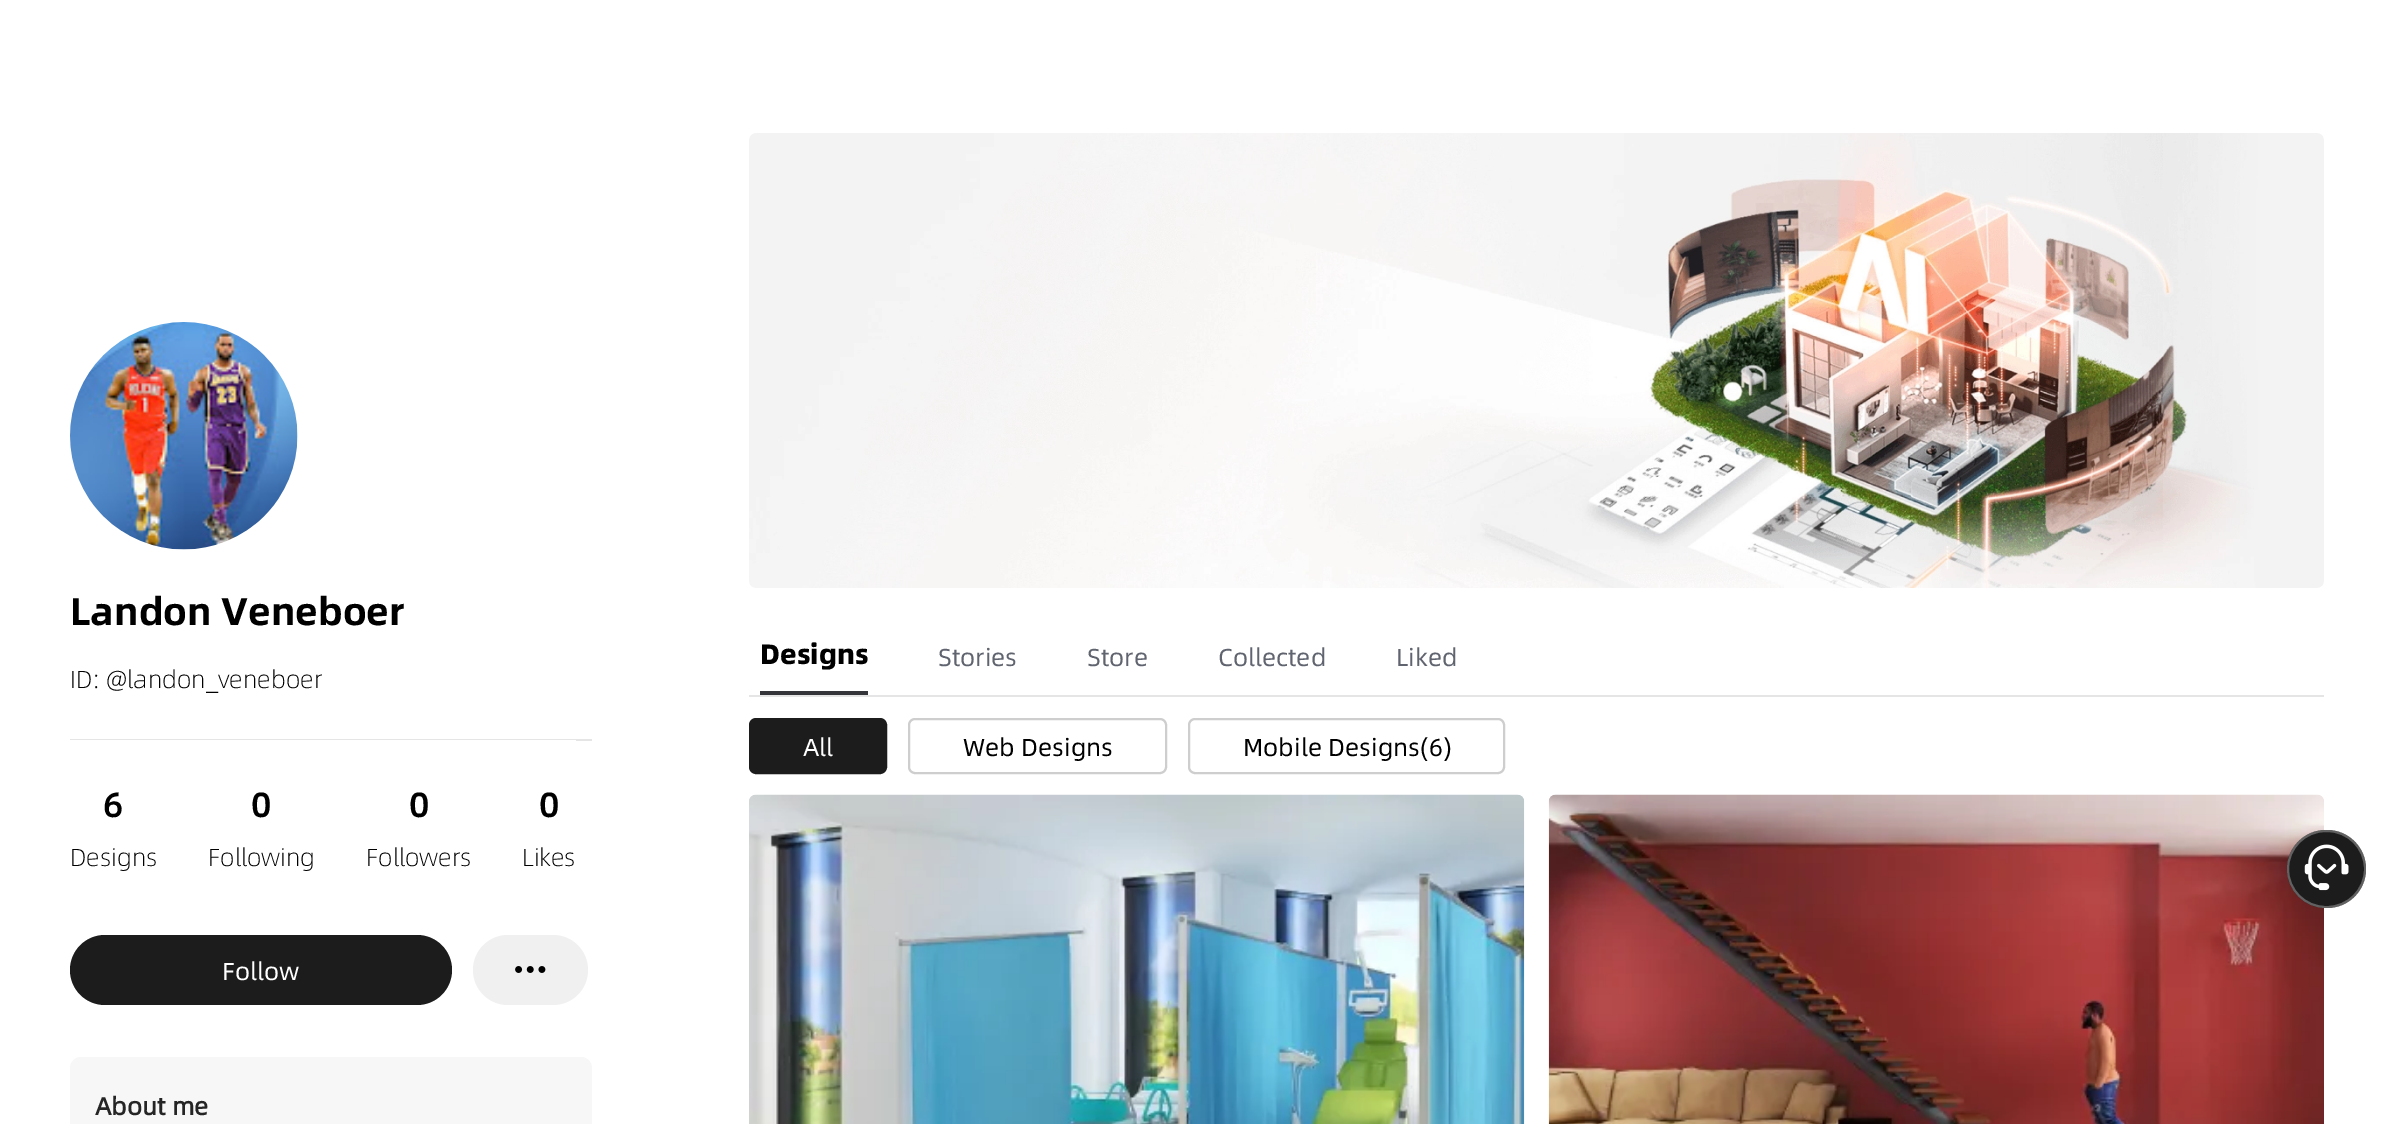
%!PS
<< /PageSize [2393 1124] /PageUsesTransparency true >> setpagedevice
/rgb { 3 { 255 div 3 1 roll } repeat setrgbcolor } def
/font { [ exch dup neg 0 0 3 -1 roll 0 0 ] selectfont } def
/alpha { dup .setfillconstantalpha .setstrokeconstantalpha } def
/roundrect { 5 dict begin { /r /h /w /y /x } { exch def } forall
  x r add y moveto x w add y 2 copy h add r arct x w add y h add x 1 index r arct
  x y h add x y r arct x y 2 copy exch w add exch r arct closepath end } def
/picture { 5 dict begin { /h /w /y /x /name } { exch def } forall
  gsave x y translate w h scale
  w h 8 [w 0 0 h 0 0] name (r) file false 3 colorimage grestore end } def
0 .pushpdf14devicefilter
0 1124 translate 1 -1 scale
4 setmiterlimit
255 255 255 rgb
0 0 2393 1124 rectfill
(img/1.rgb) 70 322 228 228 picture
229 229 229 rgb
70 739 522 2 rectfill
255 255 255 rgb
70 740 506 1 rectfill
28 28 28 rgb
70 935 382 70 35 roundrect fill
240 240 240 rgb
473 935 115 70 35 roundrect fill
(img/2.rgb) 515 966 31 7 picture
247 247 247 rgb
70 1057 522 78 11 roundrect fill
(img/3.rgb) 749 133 1575 455 picture
229 229 229 rgb
749 695 1575 2 rectfill
51 53 59 rgb
760 691 108 4 rectfill
28 28 28 rgb
750 719 136 54 6 roundrect gsave fill grestore
2 setlinewidth
stroke
206 206 206 rgb
909 719 257 54 6 roundrect stroke
1189 719 315 54 6 roundrect stroke
(img/4.rgb) 749 794 776 330 picture
(img/5.rgb) 1548 794 776 330 picture
28 28 28 rgb
2287 830 79 78 39 roundrect fill
0.3 alpha
255 255 255 rgb
2288 831 77 76 38 roundrect stroke
1 alpha
(img/6.rgb) 2304 844 45 47 picture
/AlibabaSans-Bold 38.5 font
0 0 0 rgb
70 625 moveto (Landon Veneboer) show
/AlibabaSans-Light 24.5 font
70 688 moveto (ID: @landon_veneboer) show
/AlibabaSans-Medium 35 font
103 817 moveto (6) show
/AlibabaSans-Light 24.5 font
70 866 moveto (Designs) show
/AlibabaSans-Medium 35 font
251 817 moveto (0) show
/AlibabaSans-Light 24.5 font
208 866 moveto (Following) show
/AlibabaSans-Medium 35 font
409 817 moveto (0) show
/AlibabaSans-Light 24.5 font
366 866 moveto (Followers) show
/AlibabaSans-Medium 35 font
539 817 moveto (0) show
/AlibabaSans-Light 24.5 font
522 866 moveto (Likes) show
/AlibabaSans-Regular 24.5 font
255 255 255 rgb
222 980 moveto (Follow) show
/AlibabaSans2-Bold 24.5 font
37 37 37 rgb
95 1115 moveto (About me) show
/AlibabaSans-Black 28 font
0 0 0 rgb
760 664 moveto (Designs) show
/AlibabaSans-Regular 24.5 font
96 100 111 rgb
[
  [(Stories) 938 666]
  [(Store) 1087 666]
  [(Collected) 1218 666]
  [(Liked) 1396 666]
] { aload pop moveto show } forall
255 255 255 rgb
803 756 moveto (All) show
0 0 0 rgb
963 756 moveto (Web Designs) show
1243 756 moveto (Mobile Designs\(6\)) show
.poppdf14devicefilter showpage
